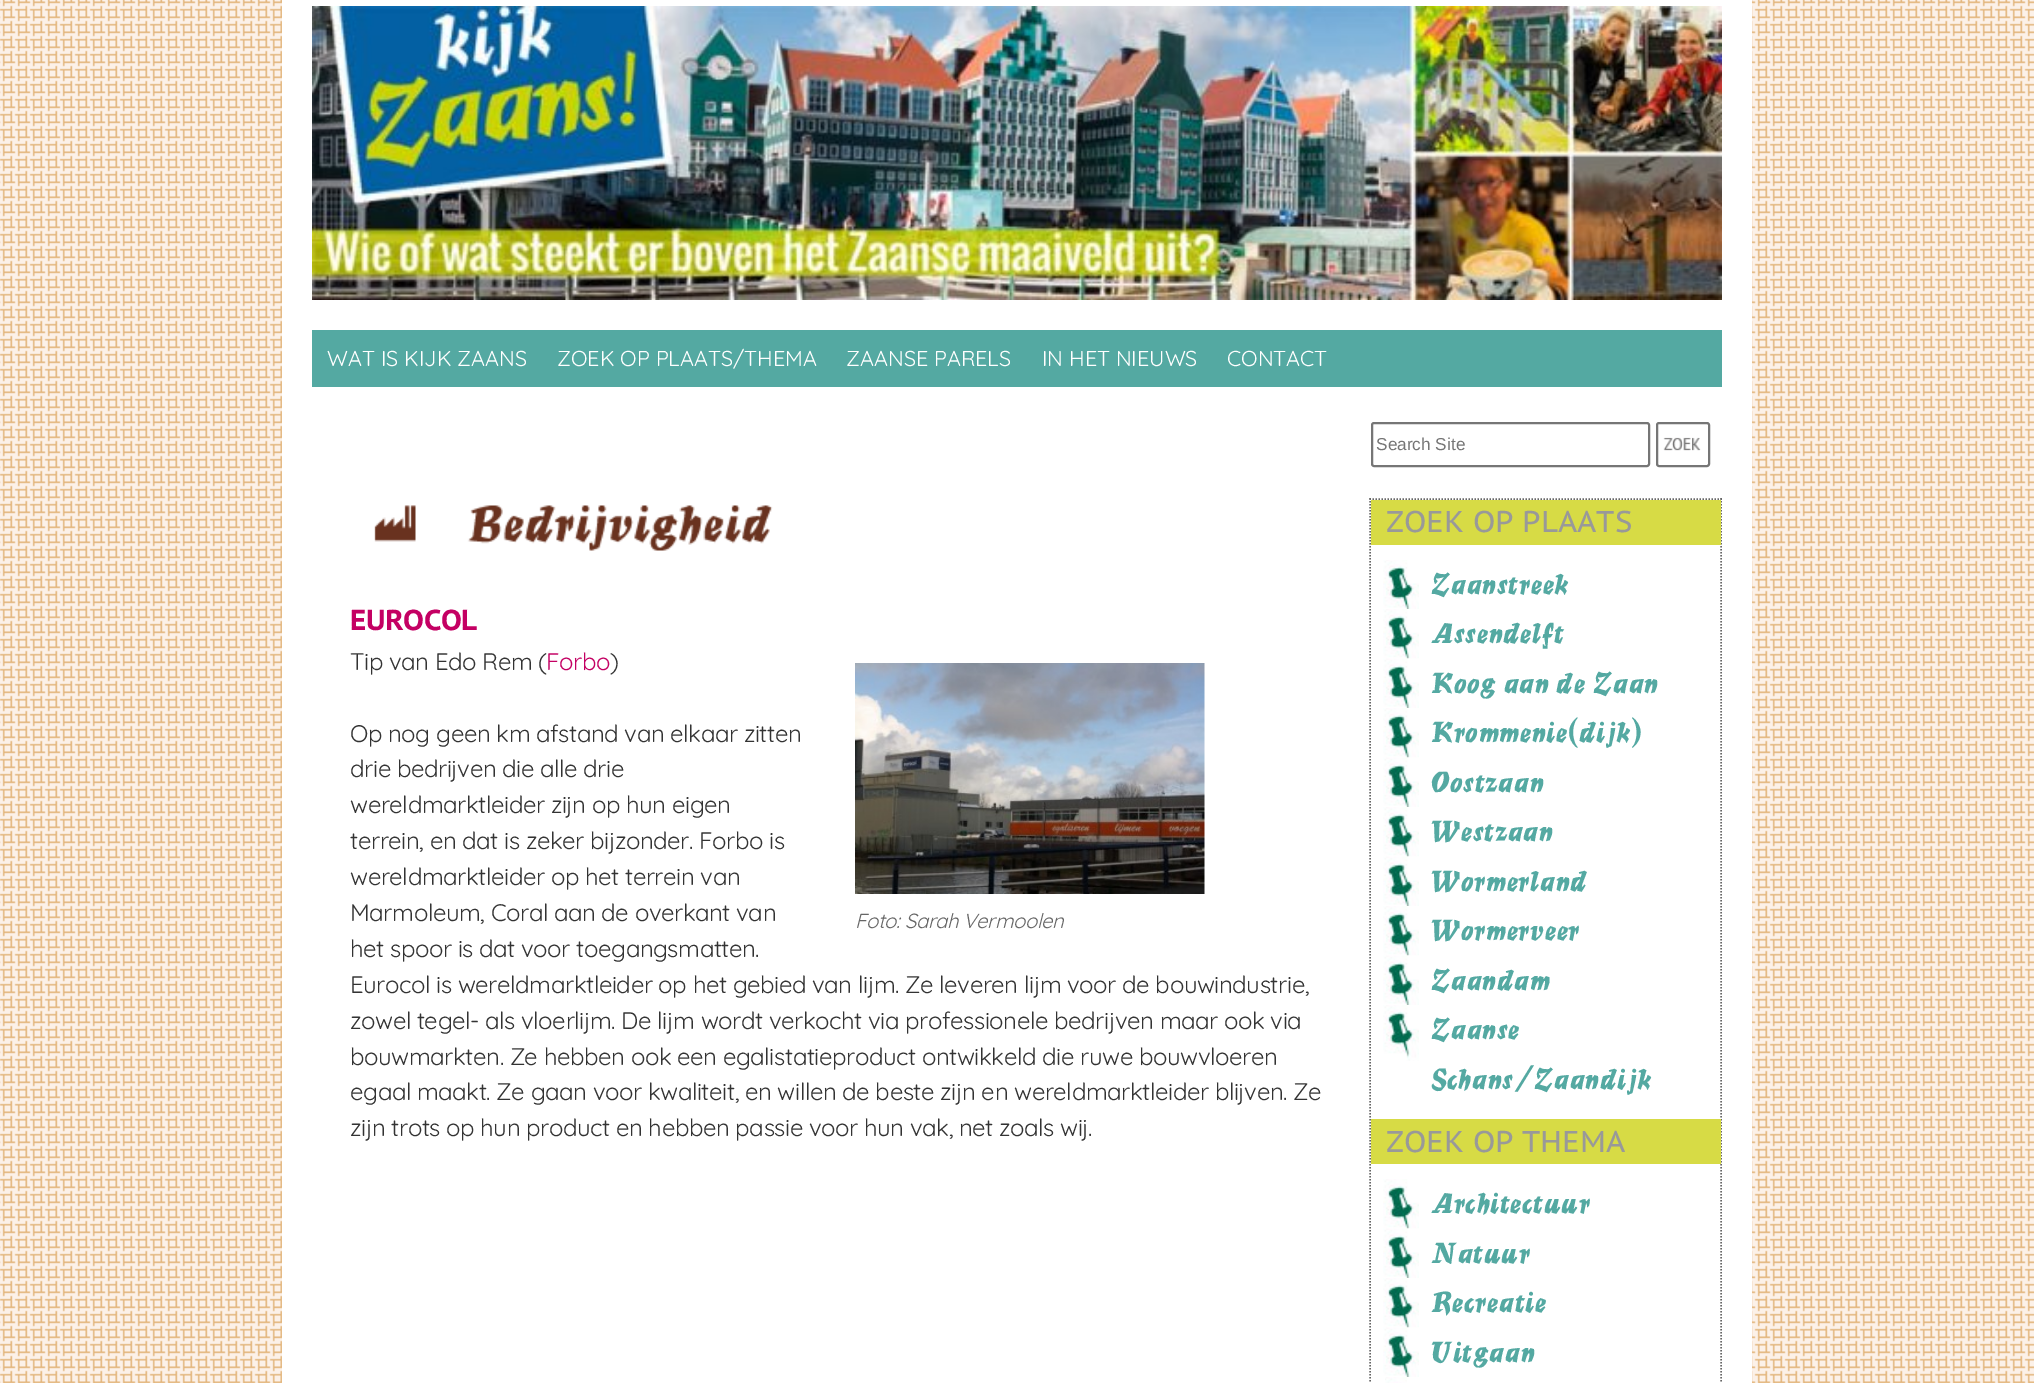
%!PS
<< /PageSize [2034 1383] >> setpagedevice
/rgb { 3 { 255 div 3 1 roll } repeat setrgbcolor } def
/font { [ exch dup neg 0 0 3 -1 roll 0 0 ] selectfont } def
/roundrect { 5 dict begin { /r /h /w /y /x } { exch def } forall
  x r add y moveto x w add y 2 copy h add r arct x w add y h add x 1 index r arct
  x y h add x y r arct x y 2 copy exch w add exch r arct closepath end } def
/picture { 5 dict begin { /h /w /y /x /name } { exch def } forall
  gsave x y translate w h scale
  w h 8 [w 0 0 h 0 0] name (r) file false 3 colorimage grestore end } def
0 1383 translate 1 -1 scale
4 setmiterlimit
255 255 255 rgb
0 0 2034 1383 rectfill
(img/1.rgb) 0 0 2034 1383 picture
282 0 1470 1383 rectfill
(img/2.rgb) 312 6 1410 294 picture
84 169 162 rgb
312 330 1410 57 rectfill
(img/3.rgb) 374 505 399 46 picture
(img/4.rgb) 855 663 350 231 picture
118 118 118 rgb
2 setlinewidth
1372 423 277 43 2 roundrect stroke
1657 423 52 43 2 roundrect stroke
(img/5.rgb) 1663 437 38 14 picture
102 102 102 rgb
1.5 setlinewidth
[1.5 1.5] 0 setdash
1369.5 499 moveto 1722 499 lineto stroke
1721 498 moveto 1721 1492.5 lineto stroke
1370 498 moveto 1370 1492.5 lineto stroke
215 219 69 rgb
1371 500 350 45 rectfill
(img/6.rgb) 1383 560 36 49 picture
(img/7.rgb) 1383 609 36 50 picture
(img/8.rgb) 1383 658 36 50 picture
(img/7.rgb) 1383 708 36 50 picture
(img/8.rgb) 1383 757 36 50 picture
(img/7.rgb) 1383 807 36 50 picture
(img/8.rgb) 1383 856 36 50 picture
(img/7.rgb) 1383 906 36 50 picture
(img/8.rgb) 1383 955 36 50 picture
(img/9.rgb) 1383 1005 36 56 picture
1371 1119 350 45 rectfill
(img/7.rgb) 1383 1179 36 50 picture
(img/8.rgb) 1383 1228 36 50 picture
(img/7.rgb) 1383 1278 36 50 picture
(img/8.rgb) 1383 1327 36 50 picture
(img/10.rgb) 1385 1377 22 6 picture
/Quicksand-Regular 21.6 font
255 255 255 rgb
[
  [(WAT IS KIJK ZAANS) 327 366]
  [(ZOEK OP PLAATS/THEMA) 557 366]
  [(ZAANSE PARELS) 846 366]
  [(IN HET NIEUWS) 1042 366]
  [(CONTACT) 1227 366]
] { aload pop moveto show } forall
/PTSansCaption-Bold 28.75 font
196 0 99 rgb
350 630 moveto -0.45 0 (EUROCOL) ashow
/Quicksand-Regular 23.95 font
51 51 51 rgb
350 670 moveto -0.45 0 (Tip van Edo Rem \() ashow
196 0 99 rgb
546 670 moveto -0.45 0 (Forbo) ashow
51 51 51 rgb
610 670 moveto -0.45 0 (\)) ashow
350 742 moveto -0.45 0 (Op nog geen km afstand van elkaar zitten) ashow
350 777 moveto -0.45 0 (drie bedrijven die alle drie) ashow
350 813 moveto -0.45 0 (wereldmarktleider zijn op hun eigen) ashow
350 849 moveto -0.45 0 (terrein, en dat is zeker bijzonder. Forbo is) ashow
350 885 moveto -0.45 0 (wereldmarktleider op het terrein van) ashow
350 921 moveto -0.45 0 (Marmoleum, Coral aan de overkant van) ashow
350 957 moveto -0.45 0 (het spoor is dat voor toegangsmatten.) ashow
350 993 moveto -0.45 0 (Eurocol is wereldmarktleider op het gebied van lijm. Ze leveren lijm voor de bouwindustrie,) ashow
350 1029 moveto -0.45 0 (zowel tegel- als vloerlijm. De lijm wordt verkocht via professionele bedrijven maar ook via) ashow
350 1065 moveto -0.45 0 (bouwmarkten. Ze hebben ook een egalistatieproduct ontwikkeld die ruwe bouwvloeren) ashow
350 1100 moveto -0.45 0 (egaal maakt. Ze gaan voor kwaliteit, en willen de beste zijn en wereldmarktleider blijven. Ze) ashow
350 1136 moveto -0.45 0 (zijn trots op hun product en hebben passie voor hun vak, net zoals wij.) ashow
/Quicksand-Italic 20.4 font
102 102 102 rgb
855 928 moveto -0.45 0 (Foto: Sarah Vermoolen) ashow
/LiberationSans-Regular 17.25 font
117 117 117 rgb
1376 450 moveto (Search Site) show
/PTSansCaption-Regular 30 font
153 153 153 rgb
1386 532 moveto (ZOEK OP PLAATS) show
/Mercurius-Regular 33 font
84 169 162 rgb
[
  [(Zaanstreek) 1431 594]
  [(Assendelft) 1431 643]
  [(Koog aan de Zaan) 1431 693]
  [(Krommenie\(dijk\)) 1431 742]
  [(Oostzaan) 1431 792]
  [(Westzaan) 1431 841]
  [(Wormerland) 1431 891]
  [(Wormerveer) 1431 940]
  [(Zaandam) 1431 990]
  [(Zaanse) 1431 1039]
  [(Schans/Zaandijk) 1431 1089]
] { aload pop moveto show } forall
/PTSansCaption-Regular 30 font
153 153 153 rgb
1386 1152 moveto (ZOEK OP THEMA) show
/Mercurius-Regular 33 font
84 169 162 rgb
[
  [(Architectuur) 1431 1213]
  [(Natuur) 1431 1263]
  [(Recreatie) 1431 1312]
  [(Uitgaan) 1431 1362]
] { aload pop moveto show } forall
showpage
